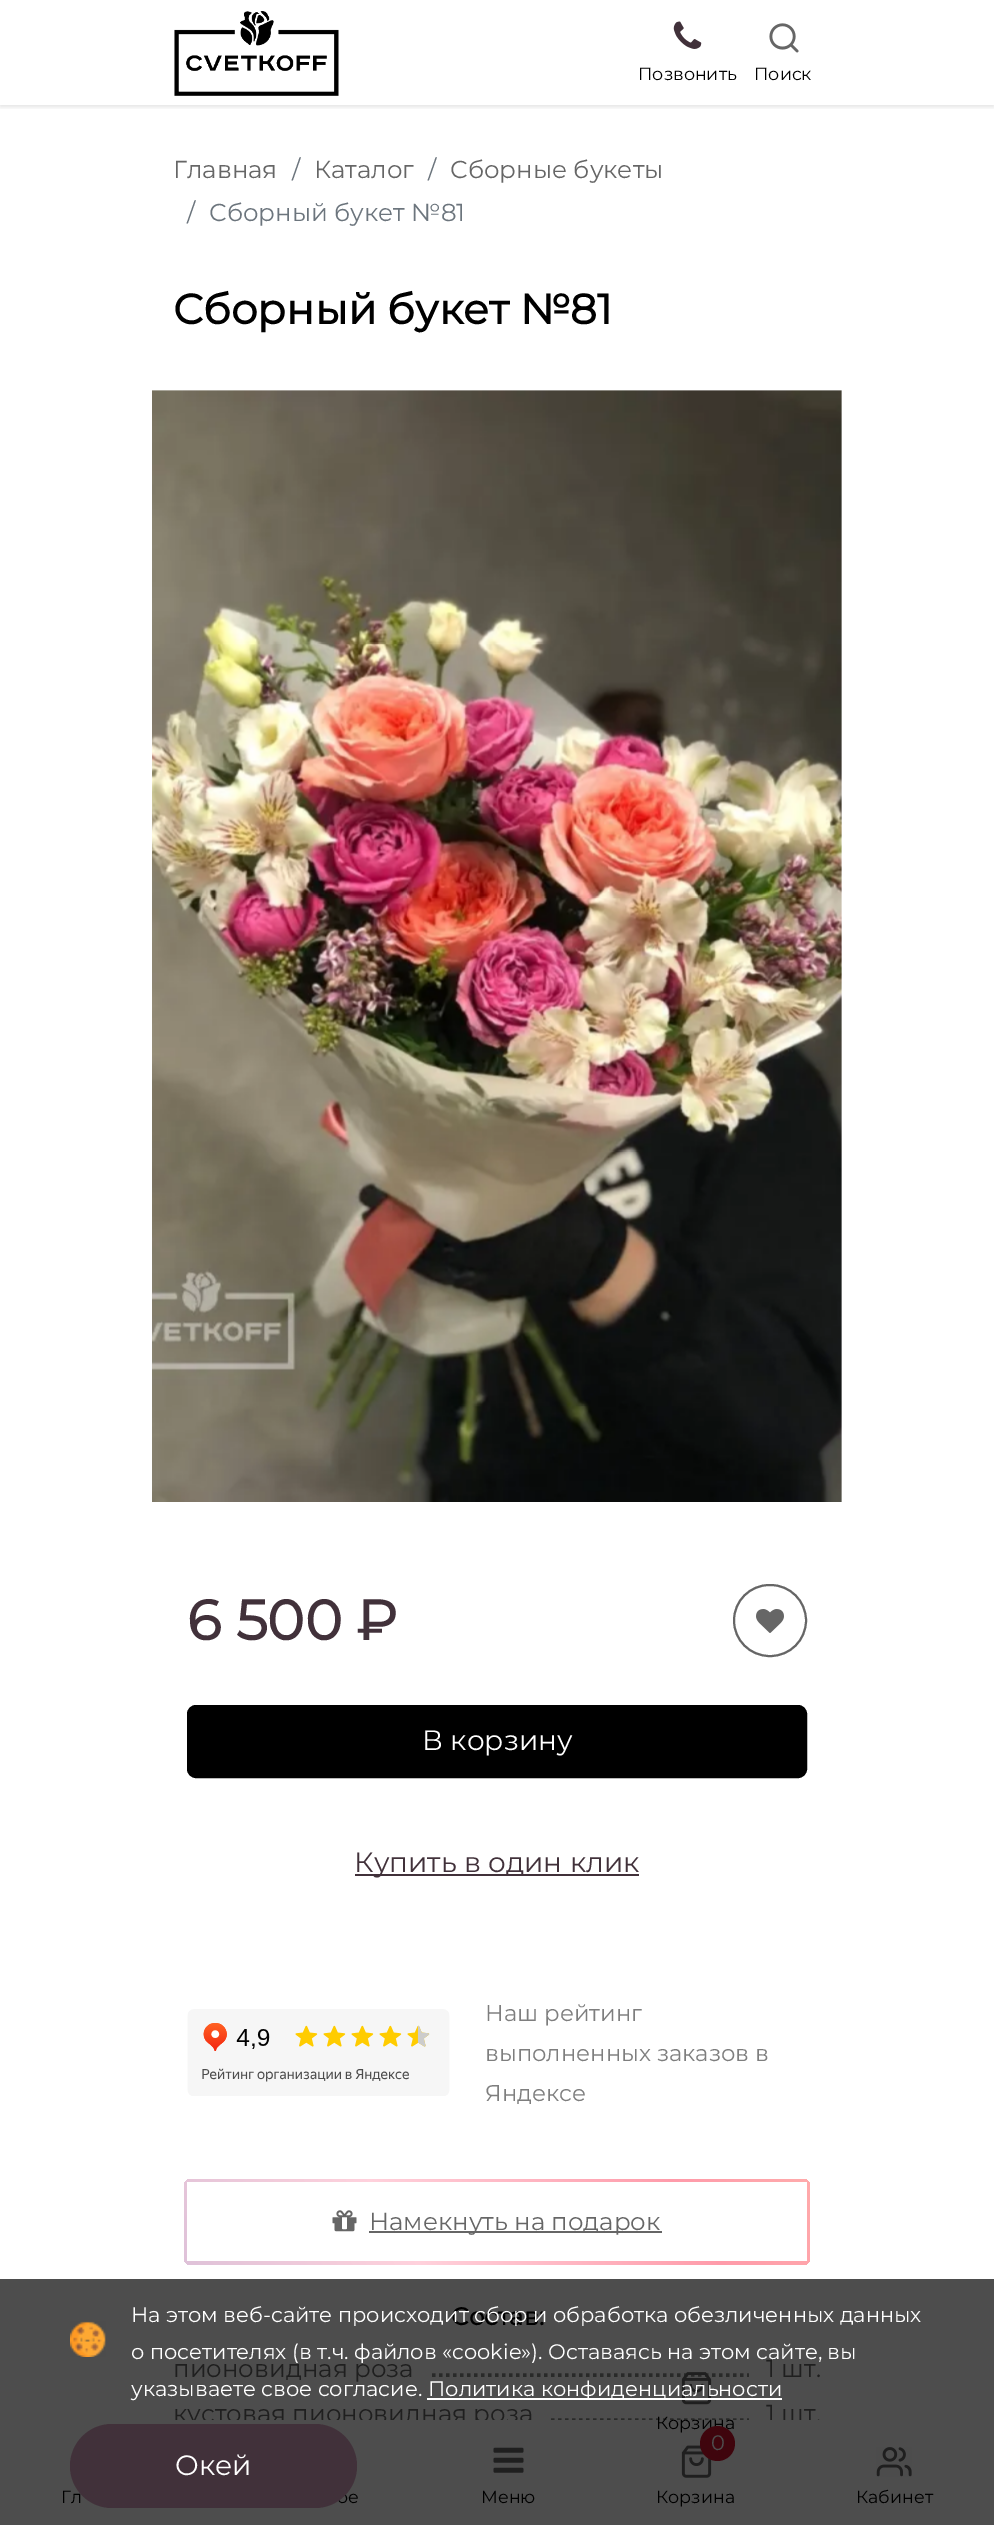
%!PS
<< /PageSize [994 2525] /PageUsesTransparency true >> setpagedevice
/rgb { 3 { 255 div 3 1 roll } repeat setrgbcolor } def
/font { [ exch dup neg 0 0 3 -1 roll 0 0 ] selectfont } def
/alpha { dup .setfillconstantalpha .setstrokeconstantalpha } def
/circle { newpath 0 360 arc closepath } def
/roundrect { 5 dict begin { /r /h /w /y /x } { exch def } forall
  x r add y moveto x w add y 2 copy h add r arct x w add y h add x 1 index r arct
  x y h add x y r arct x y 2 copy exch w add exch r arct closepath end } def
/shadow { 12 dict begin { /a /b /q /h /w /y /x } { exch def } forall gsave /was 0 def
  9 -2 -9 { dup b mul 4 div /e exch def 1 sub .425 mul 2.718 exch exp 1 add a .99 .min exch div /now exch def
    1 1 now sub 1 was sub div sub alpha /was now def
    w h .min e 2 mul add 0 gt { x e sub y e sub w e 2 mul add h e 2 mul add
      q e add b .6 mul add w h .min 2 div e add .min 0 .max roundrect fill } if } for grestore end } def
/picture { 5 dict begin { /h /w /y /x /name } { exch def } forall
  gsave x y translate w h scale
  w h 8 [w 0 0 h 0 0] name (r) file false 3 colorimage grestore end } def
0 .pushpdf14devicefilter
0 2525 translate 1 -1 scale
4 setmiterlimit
255 255 255 rgb
0 0 994 2525 rectfill
77 77 77 rgb
0 2279 994 141 rectfill
gsave
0 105 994 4 rectclip
0 0 0 rgb
0 2 994 105 0 2.5 0.11 shadow
grestore
(img/1.rgb) 174 11 165 85 picture
(img/2.rgb) 673 21 29 28 picture
(img/3.rgb) 769 23 30 30 picture
(img/4.rgb) 152 390 690 1112 picture
102 102 102 rgb
2 setlinewidth
734 1585 72 71 35.5 roundrect stroke
(img/5.rgb) 756 1609 28 24 picture
0 0 0 rgb
188 1706 618 71 8 roundrect gsave fill grestore
stroke
65 49 58 rgb
355 1874 284 2 rectfill
(img/6.rgb) 187 2009 263 87 picture
gsave 184 2179 626 86 7 roundrect clip newpath
<< /ShadingType 2 /ColorSpace /DeviceRGB /Coords [363 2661 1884 1783] /Extend [true true] /Function << /FunctionType 3 /Domain [0 1] /Functions [<< /FunctionType 2 /Domain [0 1] /C0 [0.847 0.749 0.847] /C1 [1 0.82 0.863] /N 1 >> << /FunctionType 2 /Domain [0 1] /C0 [1 0.82 0.863] /C1 [1 0.608 0.667] /N 1 >> << /FunctionType 2 /Domain [0 1] /C0 [1 0.608 0.667] /C1 [1 0.737 0.678] /N 1 >> << /FunctionType 2 /Domain [0 1] /C0 [1 0.737 0.678] /C1 [1 0.757 0.8] /N 1 >> << /FunctionType 2 /Domain [0 1] /C0 [1 0.757 0.8] /C1 [0.98 0.855 0.867] /N 1 >> << /FunctionType 2 /Domain [0 1] /C0 [0.98 0.855 0.867] /C1 [1 0.941 0.961] /N 1 >> << /FunctionType 2 /Domain [0 1] /C0 [1 0.941 0.961] /C1 [0.894 0.443 0.478] /N 1 >>] /Bounds [0.14 0.29 0.43 0.57 0.71 0.86] /Encode [0 1 0 1 0 1 0 1 0 1 0 1 0 1] >> >> shfill grestore
255 255 255 rgb
187 2182 620 79 rectfill
(img/7.rgb) 332 2210 25 22 picture
102 102 102 rgb
369 2231 293 2 rectfill
41 42 41 rgb
3.5 setlinewidth
[3.5 3.5] 0 setdash
432 2375 moveto 749 2375 lineto stroke
551 2420 moveto 749 2420 lineto stroke
(img/8.rgb) 70 2321 36 36 picture
(img/10.rgb) 681 2372 31 33 picture
255 255 255 rgb
427 2398 355 2 rectfill
/Montserrat-Regular 17.5 font
0 0 0 rgb
638 80 moveto (Позвонить) show
754 80 moveto (Поиск) show
/Montserrat-Regular 24.5 font
102 102 102 rgb
173 178 moveto (Главная) show
108 117 125 rgb
292 178 moveto (/) show
102 102 102 rgb
314 178 moveto (Каталог) show
108 117 125 rgb
428 178 moveto (/) show
102 102 102 rgb
450 178 moveto (Сборные букеты) show
108 117 125 rgb
187 221 moveto (/) show
209 221 moveto (Сборный букет №81) show
/Montserrat-Bold 42 font
0 0 0 rgb
173 324 moveto (Сборный букет №81) show
/Montserrat-Bold 56 font
65 49 58 rgb
187 1640 moveto (6 500 ₽) show
/Montserrat-Regular 28 font
255 255 255 rgb
422 1750 moveto (В корзину) show
65 49 58 rgb
354 1872 moveto (Купить в один клик) show
/Montserrat-Regular 22.75 font
126 126 126 rgb
[
  [(Наш рейтинг) 485 2021]
  [(выполненных заказов в) 485 2061]
  [(Яндексе) 485 2101]
] { aload pop moveto show } forall
/Montserrat-Regular 24.5 font
102 102 102 rgb
369 2230 moveto (Намекнуть на подарок) show
/Montserrat-Bold 24.5 font
0 0 0 rgb
451 2325 moveto (Состав:) show
/Montserrat-Regular 24.5 font
31 31 31 rgb
[
  [(пионовидная роза) 173 2377]
  [(1 шт.) 766 2377]
  [(кустовая пионовидная роза) 173 2422]
  [(1 шт.) 766 2422]
] { aload pop moveto show } forall
/Montserrat-Regular 21 font
255 255 255 rgb
[
  [(На этом веб-сайте происходит сбор и обработка обезличенных данных) 131 2322]
  [(о посетителях \(в т.ч. файлов «cookie»\). Оставаясь на этом сайте, вы) 131 2359]
  [(указываете свое согласие.) 131 2396]
  [(Политика конфиденциальности) 428 2396]
] { aload pop moveto show } forall
77 77 77 rgb
0 2420 994 105 rectfill
/Montserrat-Regular 17.5 font
0 0 0 rgb
61 2503 moveto (Гл) show
337 2503 moveto (ое) show
65 49 58 rgb
70 2424 287 84 42 roundrect fill
/Montserrat-Regular 28 font
255 255 255 rgb
175 2475 moveto (Окей) show
(img/9.rgb) 493 2447 31 26 picture
/Montserrat-Regular 17.5 font
0 0 0 rgb
481 2503 moveto (Меню) show
656 2429 moveto (Корзина) show
(img/11.rgb) 681 2445 31 33 picture
63 5 13 rgb
717.5 2443.5 17.5 circle fill
/Montserrat-Regular 21 font
77 77 77 rgb
711 2450 moveto (0) show
/Montserrat-Regular 17.5 font
0 0 0 rgb
656 2503 moveto (Корзина) show
(img/12.rgb) 876 2447 36 30 picture
856 2503 moveto (Кабинет) show
.poppdf14devicefilter showpage
